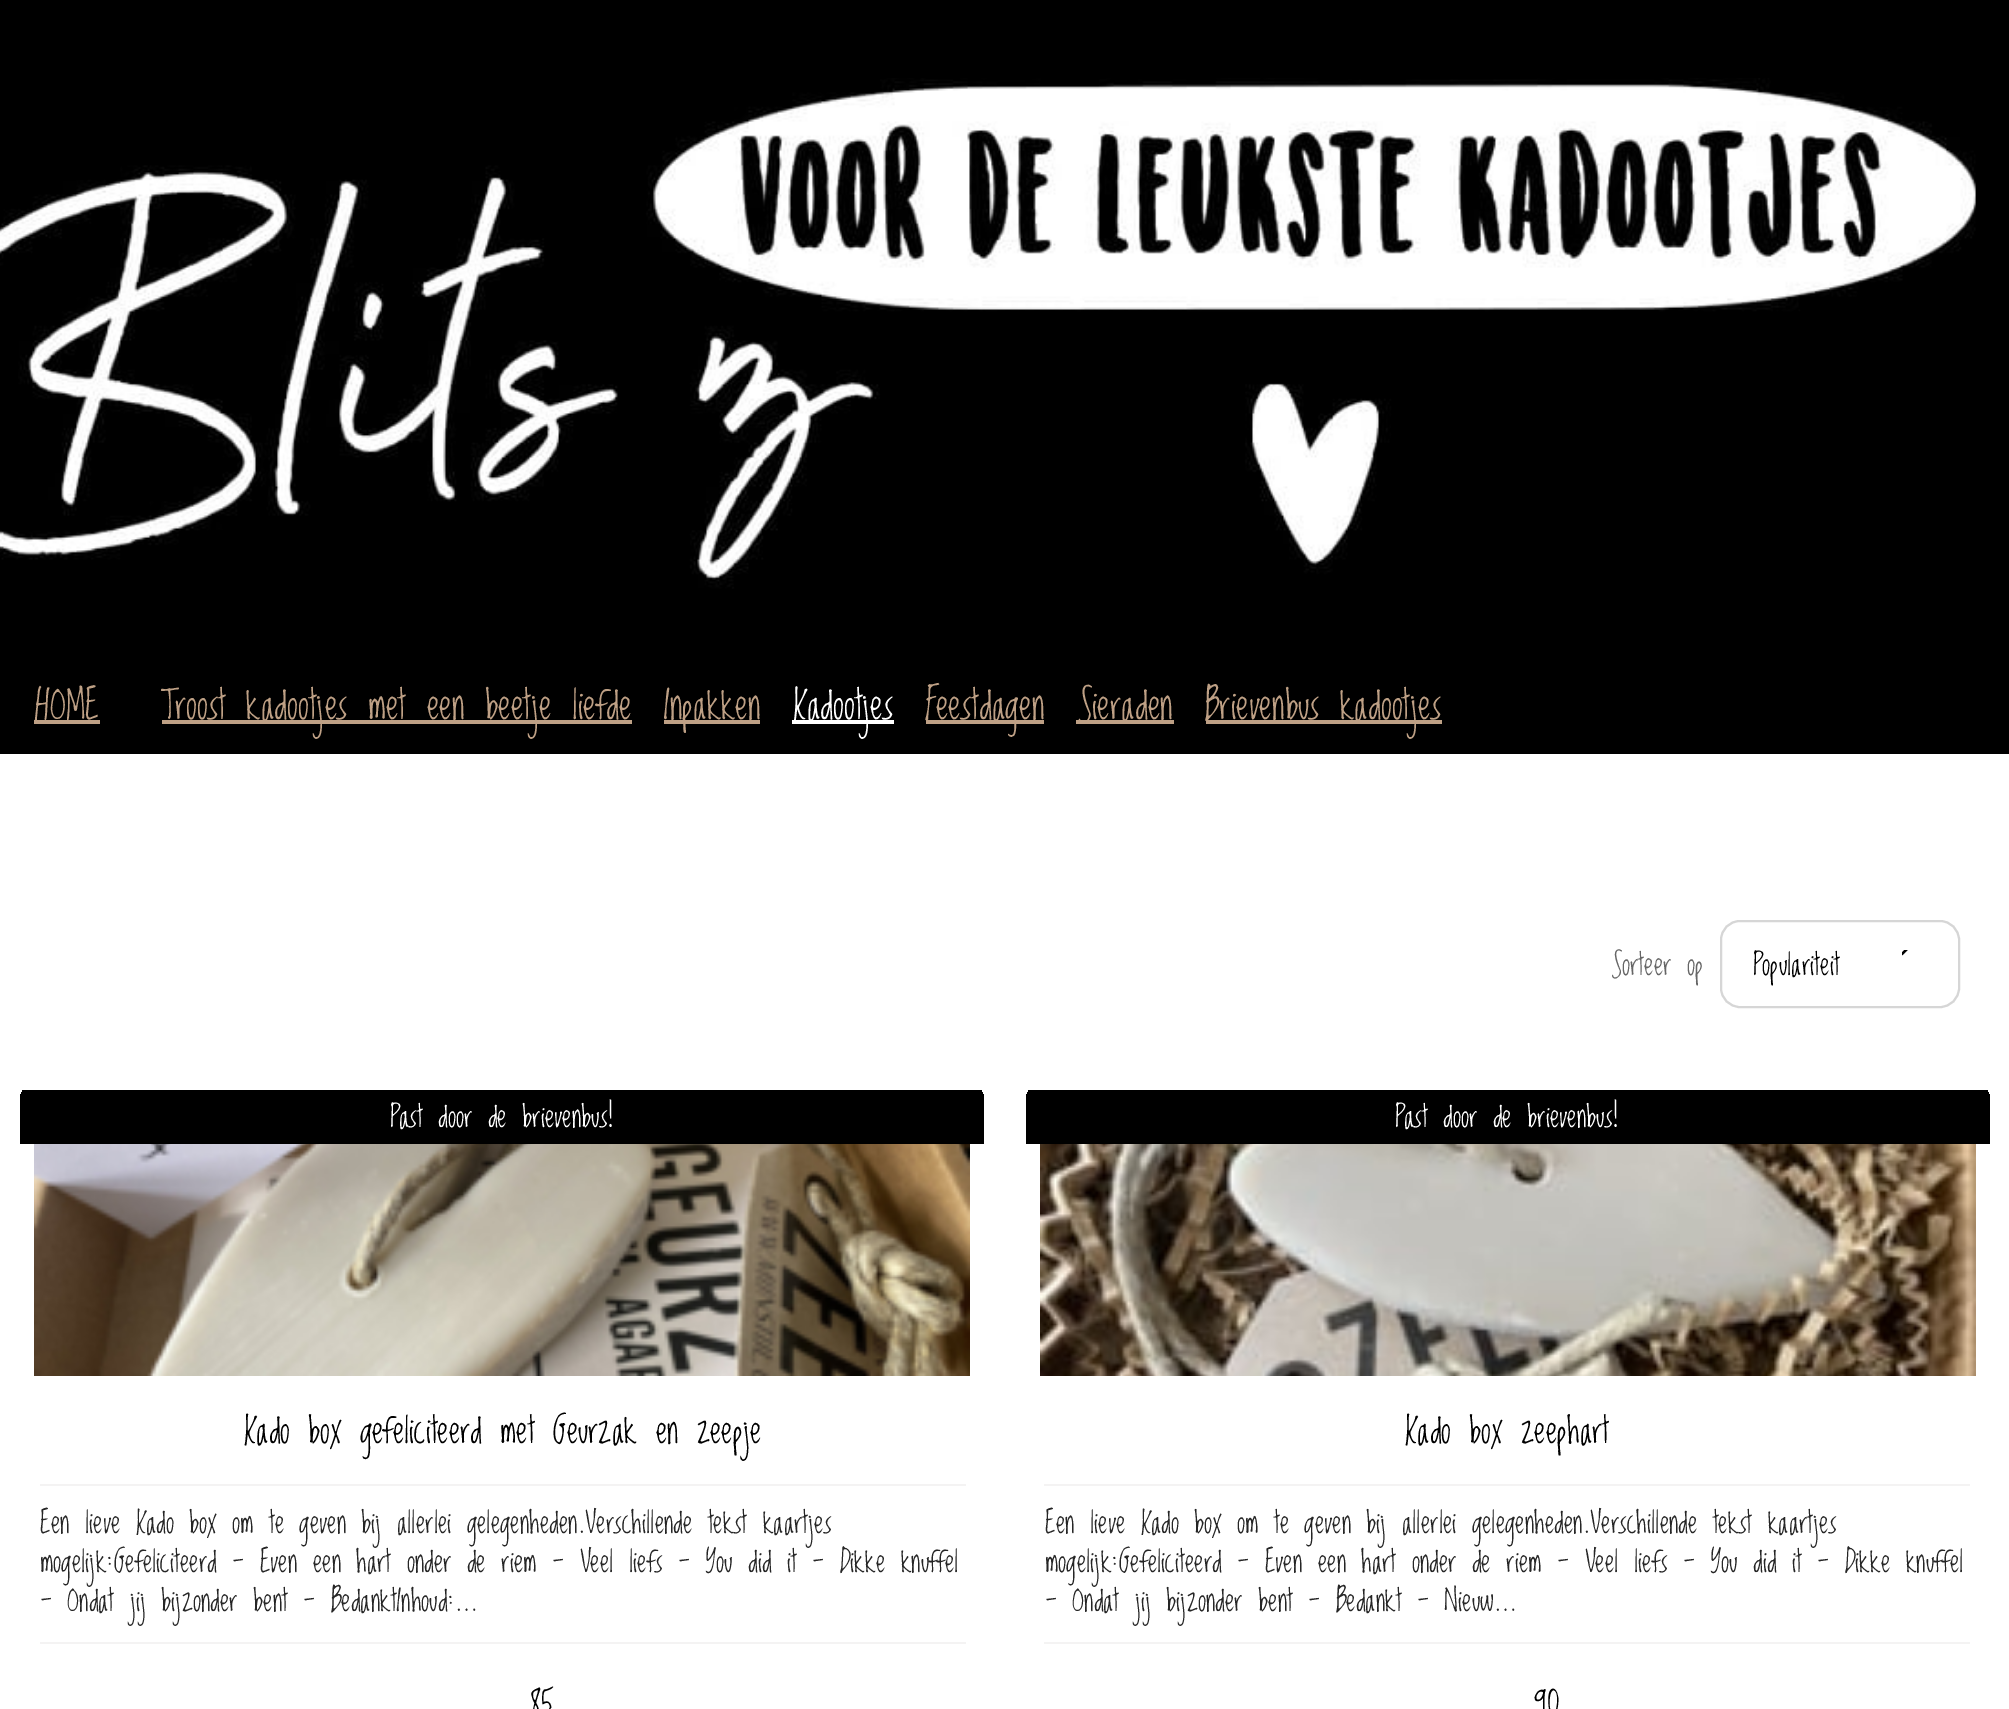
%!PS
<< /PageSize [2009 1709] >> setpagedevice
/rgb { 3 { 255 div 3 1 roll } repeat setrgbcolor } def
/font { [ exch dup neg 0 0 3 -1 roll 0 0 ] selectfont } def
/roundrect { 5 dict begin { /r /h /w /y /x } { exch def } forall
  x r add y moveto x w add y 2 copy h add r arct x w add y h add x 1 index r arct
  x y h add x y r arct x y 2 copy exch w add exch r arct closepath end } def
/picture { 5 dict begin { /h /w /y /x /name } { exch def } forall
  gsave x y translate w h scale
  w h 8 [w 0 0 h 0 0] name (r) file false 3 colorimage grestore end } def
0 1709 translate 1 -1 scale
4 setmiterlimit
255 255 255 rgb
0 0 2009 1709 rectfill
0 0 0 rgb
0 0 2009 754 rectfill
(img/1.rgb) 0 78 1976 511 picture
[
  [34 720 66 4 190 160 133]
  [162 720 470 4 190 160 133]
  [664 720 96 4 190 160 133]
  [792 720 102 4 255 255 255]
  [926 720 118 4 190 160 133]
  [1076 720 98 4 190 160 133]
  [1206 720 236 4 190 160 133]
] { aload pop rgb rectfill } forall
214 214 214 rgb
2 setlinewidth
1721 921 238 86 19 roundrect stroke
(img/2.rgb) 1902 950 6 6 picture
gsave
38 1082 moveto 966 1082 lineto 976 1082 984 1090 984 1100 curveto 984 1390 lineto 20 1390 lineto 20 1100 lineto 20 1090 28 1082 38 1082 curveto closepath clip newpath
0 0 0 rgb
20 1090 964 54 rectfill
grestore
(img/3.rgb) 34 1144 936 232 picture
244 243 243 rgb
40 1484 926 2 rectfill
40 1642 926 2 rectfill
gsave
1044 1082 moveto 1972 1082 lineto 1982 1082 1990 1090 1990 1100 curveto 1990 1390 lineto 1026 1390 lineto 1026 1100 lineto 1026 1090 1034 1082 1044 1082 curveto closepath clip newpath
0 0 0 rgb
1026 1090 964 54 rectfill
grestore
(img/4.rgb) 1040 1144 936 232 picture
1044 1484 926 2 rectfill
1044 1642 926 2 rectfill
/LovedbytheKing-Regular 40 font
190 160 133 rgb
[
  [(HOME) 35 719]
  [(Troost kadootjes met een beetje liefde) 161 719]
  [(Inpakken) 663 719]
] { aload pop moveto show } forall
255 255 255 rgb
793 719 moveto (Kadootjes) show
190 160 133 rgb
[
  [(Feestdagen) 925 719]
  [(Sieraden) 1076 719]
  [(Brievenbus kadootjes) 1205 719]
] { aload pop moveto show } forall
/LovedbytheKing-Regular 30 font
102 102 102 rgb
1610 975 moveto (Sorteer op) show
0 0 0 rgb
1753 975 moveto (Populariteit) show
255 255 255 rgb
390 1127 moveto (Past door de brievenbus!) show
/LovedbytheKing-Regular 36 font
0 0 0 rgb
244 1443 moveto (Kado box gefeliciteerd met Geurzak en zeepje) show
/LovedbytheKing-Regular 30 font
38 38 38 rgb
[
  [(Een lieve Kado box om te geven bij allerlei gelegenheden.Verschillende tekst kaartjes) 40 1533]
  [(mogelijk:Gefeliciteerd - Even een hart onder de riem - Veel liefs - You did it - Dikke knuffel) 40 1572]
  [(- Ondat jij bijzonder bent - BedanktInhoud:…) 40 1611]
] { aload pop moveto show } forall
/LovedbytheKing-Regular 36 font
0 0 0 rgb
530 1715 moveto (85) show
/LovedbytheKing-Regular 30 font
255 255 255 rgb
1395 1127 moveto (Past door de brievenbus!) show
/LovedbytheKing-Regular 36 font
0 0 0 rgb
1405 1443 moveto (Kado box zeephart) show
/LovedbytheKing-Regular 30 font
38 38 38 rgb
[
  [(Een lieve Kado box om te geven bij allerlei gelegenheden.Verschillende tekst kaartjes) 1045 1533]
  [(mogelijk:Gefeliciteerd - Even een hart onder de riem - Veel liefs - You did it - Dikke knuffel) 1045 1572]
  [(- Ondat jij bijzonder bent - Bedankt - Nieuw…) 1045 1611]
] { aload pop moveto show } forall
/LovedbytheKing-Regular 36 font
0 0 0 rgb
1534 1715 moveto (90) show
showpage
